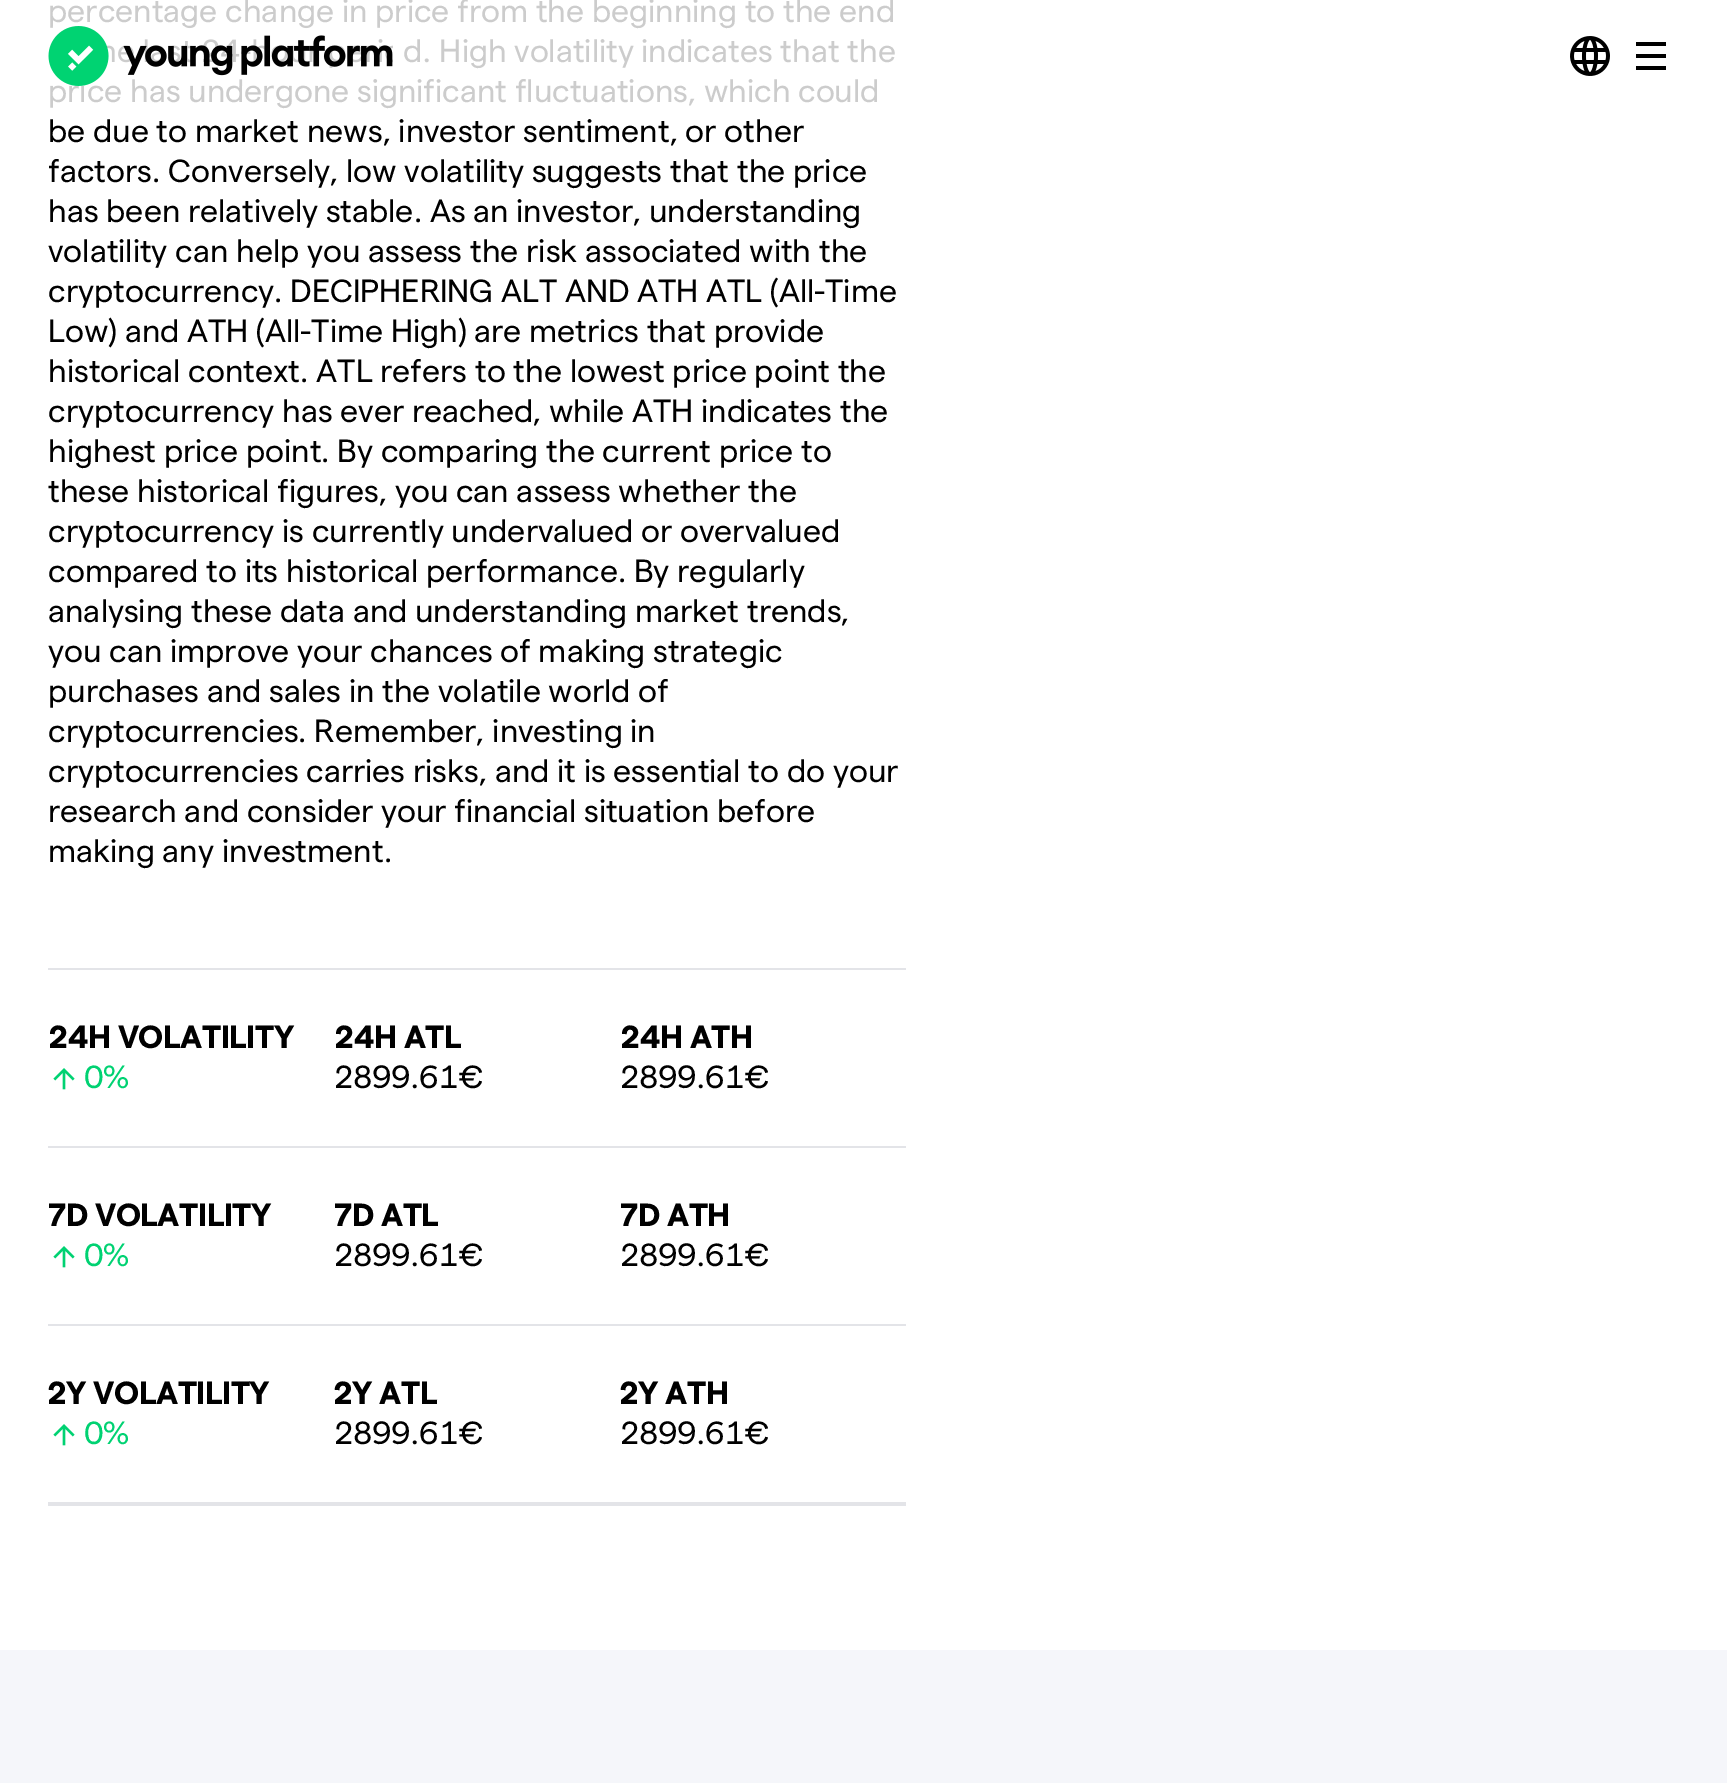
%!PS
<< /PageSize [1727 1783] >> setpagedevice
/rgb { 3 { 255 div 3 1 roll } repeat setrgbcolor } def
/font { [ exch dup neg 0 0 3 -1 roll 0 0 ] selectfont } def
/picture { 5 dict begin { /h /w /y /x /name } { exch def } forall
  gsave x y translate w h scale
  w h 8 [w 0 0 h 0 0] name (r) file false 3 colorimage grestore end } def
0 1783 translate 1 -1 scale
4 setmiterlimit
255 255 255 rgb
0 0 1727 1783 rectfill
[
  [48 968 858 2 227 228 232]
  [48 1502 858 4 227 228 232]
  [48 1146 858 2 227 228 232]
] { aload pop rgb rectfill } forall
(img/1.rgb) 53 1068 22 22 picture
48 1324 858 2 rectfill
(img/1.rgb) 53 1246 22 22 picture
(img/1.rgb) 53 1424 22 22 picture
245 246 250 rgb
0 1650 1727 133 rectfill
(img/3.rgb) 1570 36 40 40 picture
[
  [1636 42 30 4 0 0 0]
  [1636 54 30 4 0 0 0]
  [1636 66 30 4 0 0 0]
] { aload pop rgb rectfill } forall
/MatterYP-Regular 32 font
204 204 204 rgb
48 22 moveto (percentage change in price from the beginning to the end) show
/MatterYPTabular-Regular 32 font
403 62 moveto (d. High volatility indicates that the) show
/MatterYP-Regular 32 font
48 102 moveto (price has undergone significant fluctuations, which could) show
0 0 0 rgb
[
  [(be due to market news, investor sentiment, or other) 48 142]
  [(factors. Conversely, low volatility suggests that the price) 48 182]
  [(has been relatively stable. As an investor, understanding) 48 222]
  [(volatility can help you assess the risk associated with the) 48 262]
  [(cryptocurrency. DECIPHERING ALT AND ATH ATL \(All-Time) 48 302]
  [(Low\) and ATH \(All-Time High\) are metrics that provide) 48 342]
  [(historical context. ATL refers to the lowest price point the) 48 382]
  [(cryptocurrency has ever reached, while ATH indicates the) 48 422]
  [(highest price point. By comparing the current price to) 48 462]
  [(these historical figures, you can assess whether the) 48 502]
  [(cryptocurrency is currently undervalued or overvalued) 48 542]
  [(compared to its historical performance. By regularly) 48 582]
  [(analysing these data and understanding market trends,) 48 622]
  [(you can improve your chances of making strategic) 48 662]
  [(purchases and sales in the volatile world of) 48 702]
  [(cryptocurrencies. Remember, investing in) 48 742]
  [(cryptocurrencies carries risks, and it is essential to do your) 48 782]
  [(research and consider your financial situation before) 48 822]
  [(making any investment.) 48 862]
] { aload pop moveto show } forall
/MatterYPTabular-Bold 32 font
48 1048 moveto -0.4 0 (24H VOLATILITY) ashow
/MatterYP-Regular 32 font
0 210 114 rgb
84 1088 moveto -0.4 0 (0%) ashow
/MatterYPTabular-Bold 32 font
0 0 0 rgb
334 1048 moveto -0.4 0 (24H ATL) ashow
/MatterYPTabular-Regular 32 font
334 1088 moveto -0.4 0 (2899.61€) ashow
/MatterYPTabular-Bold 32 font
620 1048 moveto -0.4 0 (24H ATH) ashow
/MatterYPTabular-Regular 32 font
620 1088 moveto -0.4 0 (2899.61€) ashow
/MatterYP-Bold 32 font
48 1226 moveto -0.4 0 (7D VOLATILITY) ashow
/MatterYP-Regular 32 font
0 210 114 rgb
84 1266 moveto -0.4 0 (0%) ashow
/MatterYP-Bold 32 font
0 0 0 rgb
334 1226 moveto -0.4 0 (7D ATL) ashow
/MatterYPTabular-Regular 32 font
334 1266 moveto -0.4 0 (2899.61€) ashow
/MatterYP-Bold 32 font
620 1226 moveto -0.4 0 (7D ATH) ashow
/MatterYPTabular-Regular 32 font
620 1266 moveto -0.4 0 (2899.61€) ashow
/MatterYP-Bold 32 font
48 1404 moveto -0.4 0 (2Y VOLATILITY) ashow
/MatterYP-Regular 32 font
0 210 114 rgb
84 1444 moveto -0.4 0 (0%) ashow
/MatterYP-Bold 32 font
0 0 0 rgb
334 1404 moveto -0.4 0 (2Y ATL) ashow
/MatterYPTabular-Regular 32 font
334 1444 moveto -0.4 0 (2899.61€) ashow
/MatterYP-Bold 32 font
620 1404 moveto -0.4 0 (2Y ATH) ashow
/MatterYPTabular-Regular 32 font
620 1444 moveto -0.4 0 (2899.61€) ashow
(img/2.rgb) 48 26 345 60 picture
showpage
